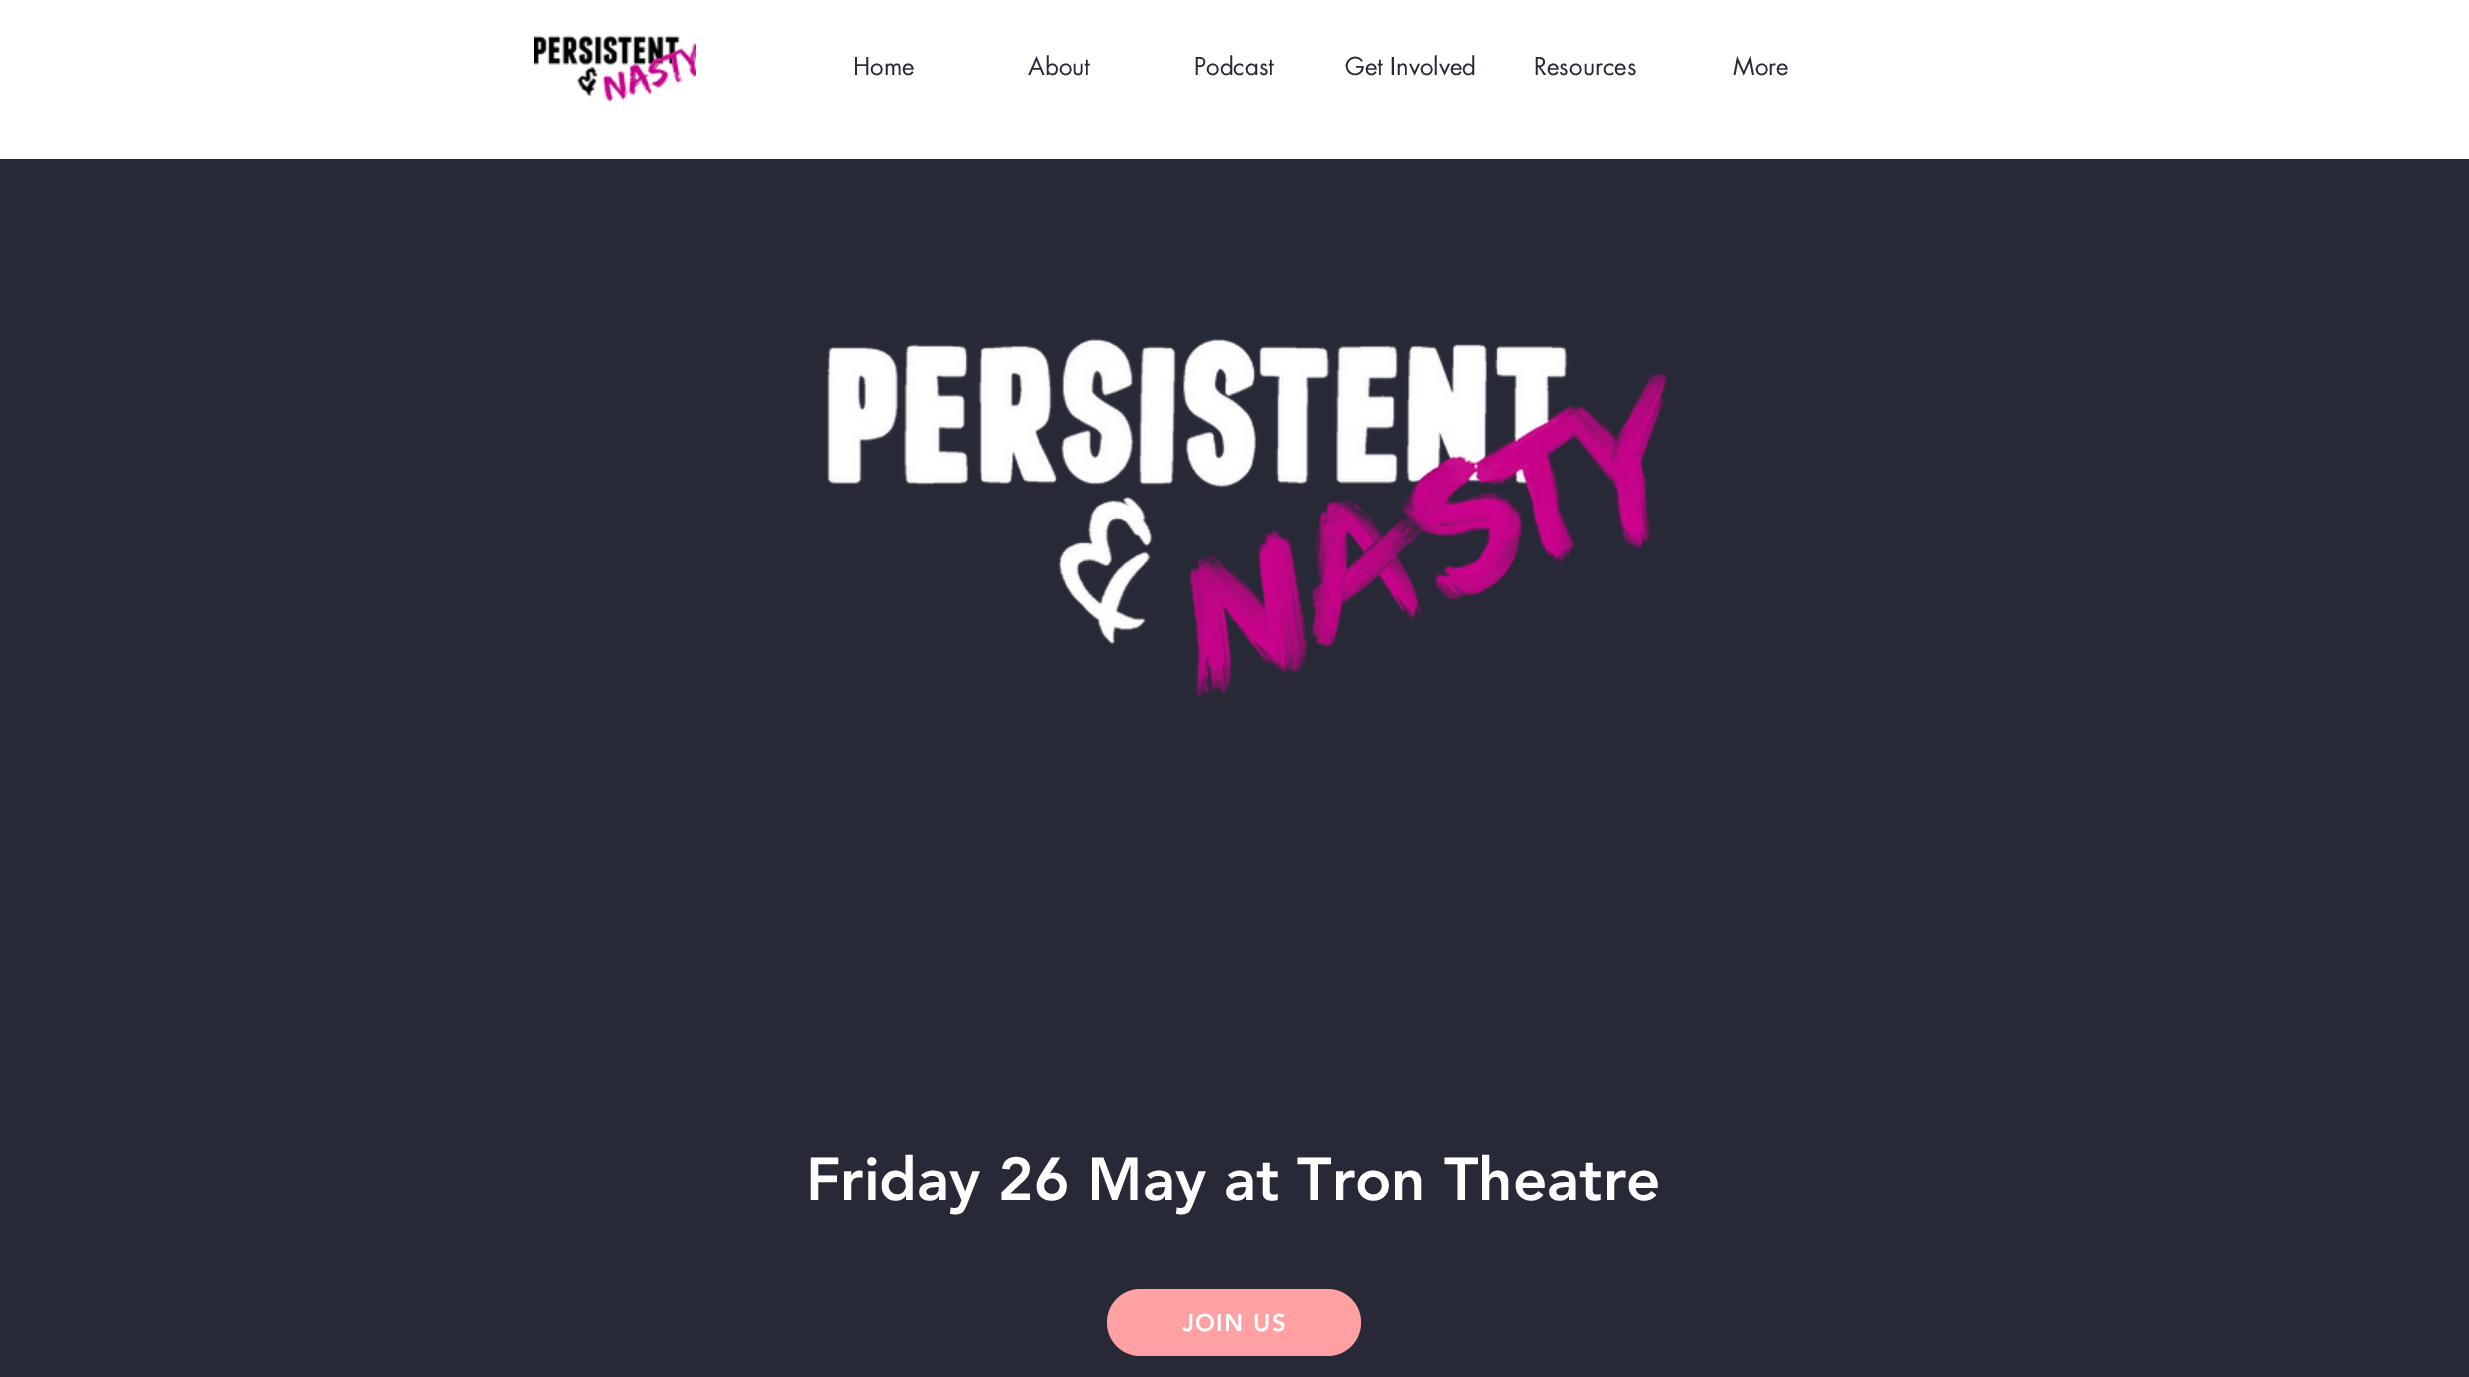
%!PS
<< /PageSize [2469 1377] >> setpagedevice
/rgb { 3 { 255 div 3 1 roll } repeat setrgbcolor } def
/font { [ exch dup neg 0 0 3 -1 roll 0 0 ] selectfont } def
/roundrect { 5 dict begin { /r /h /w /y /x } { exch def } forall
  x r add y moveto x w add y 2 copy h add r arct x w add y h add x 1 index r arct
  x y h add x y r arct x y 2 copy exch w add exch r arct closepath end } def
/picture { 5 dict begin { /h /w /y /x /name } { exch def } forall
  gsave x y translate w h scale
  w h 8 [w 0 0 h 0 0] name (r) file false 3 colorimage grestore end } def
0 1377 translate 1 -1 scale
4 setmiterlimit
255 255 255 rgb
0 0 2469 1377 rectfill
(img/1.rgb) 534 35 162 68 picture
40 41 54 rgb
0 159 2469 1218 rectfill
(img/2.rgb) 826 338 842 361 picture
255 160 163 rgb
1107 1289 254 67 33.5 roundrect fill
/futura-Regular 24 font
40 41 54 rgb
[
  [(Home) 853 75]
  [(About) 1028 75]
  [(Podcast) 1194 75]
  [(Get Involved) 1345 75]
  [(Resources) 1534 75]
  [(More) 1733 75]
] { aload pop moveto show } forall
/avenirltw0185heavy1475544-Black 60 font
255 255 255 rgb
806 1200 moveto (Friday 26 May at Tron Theatre) show
/avenirltw0185heavy1475544-Black 24 font
1182 1331 moveto 1.25 0 (JOIN US) ashow
showpage
